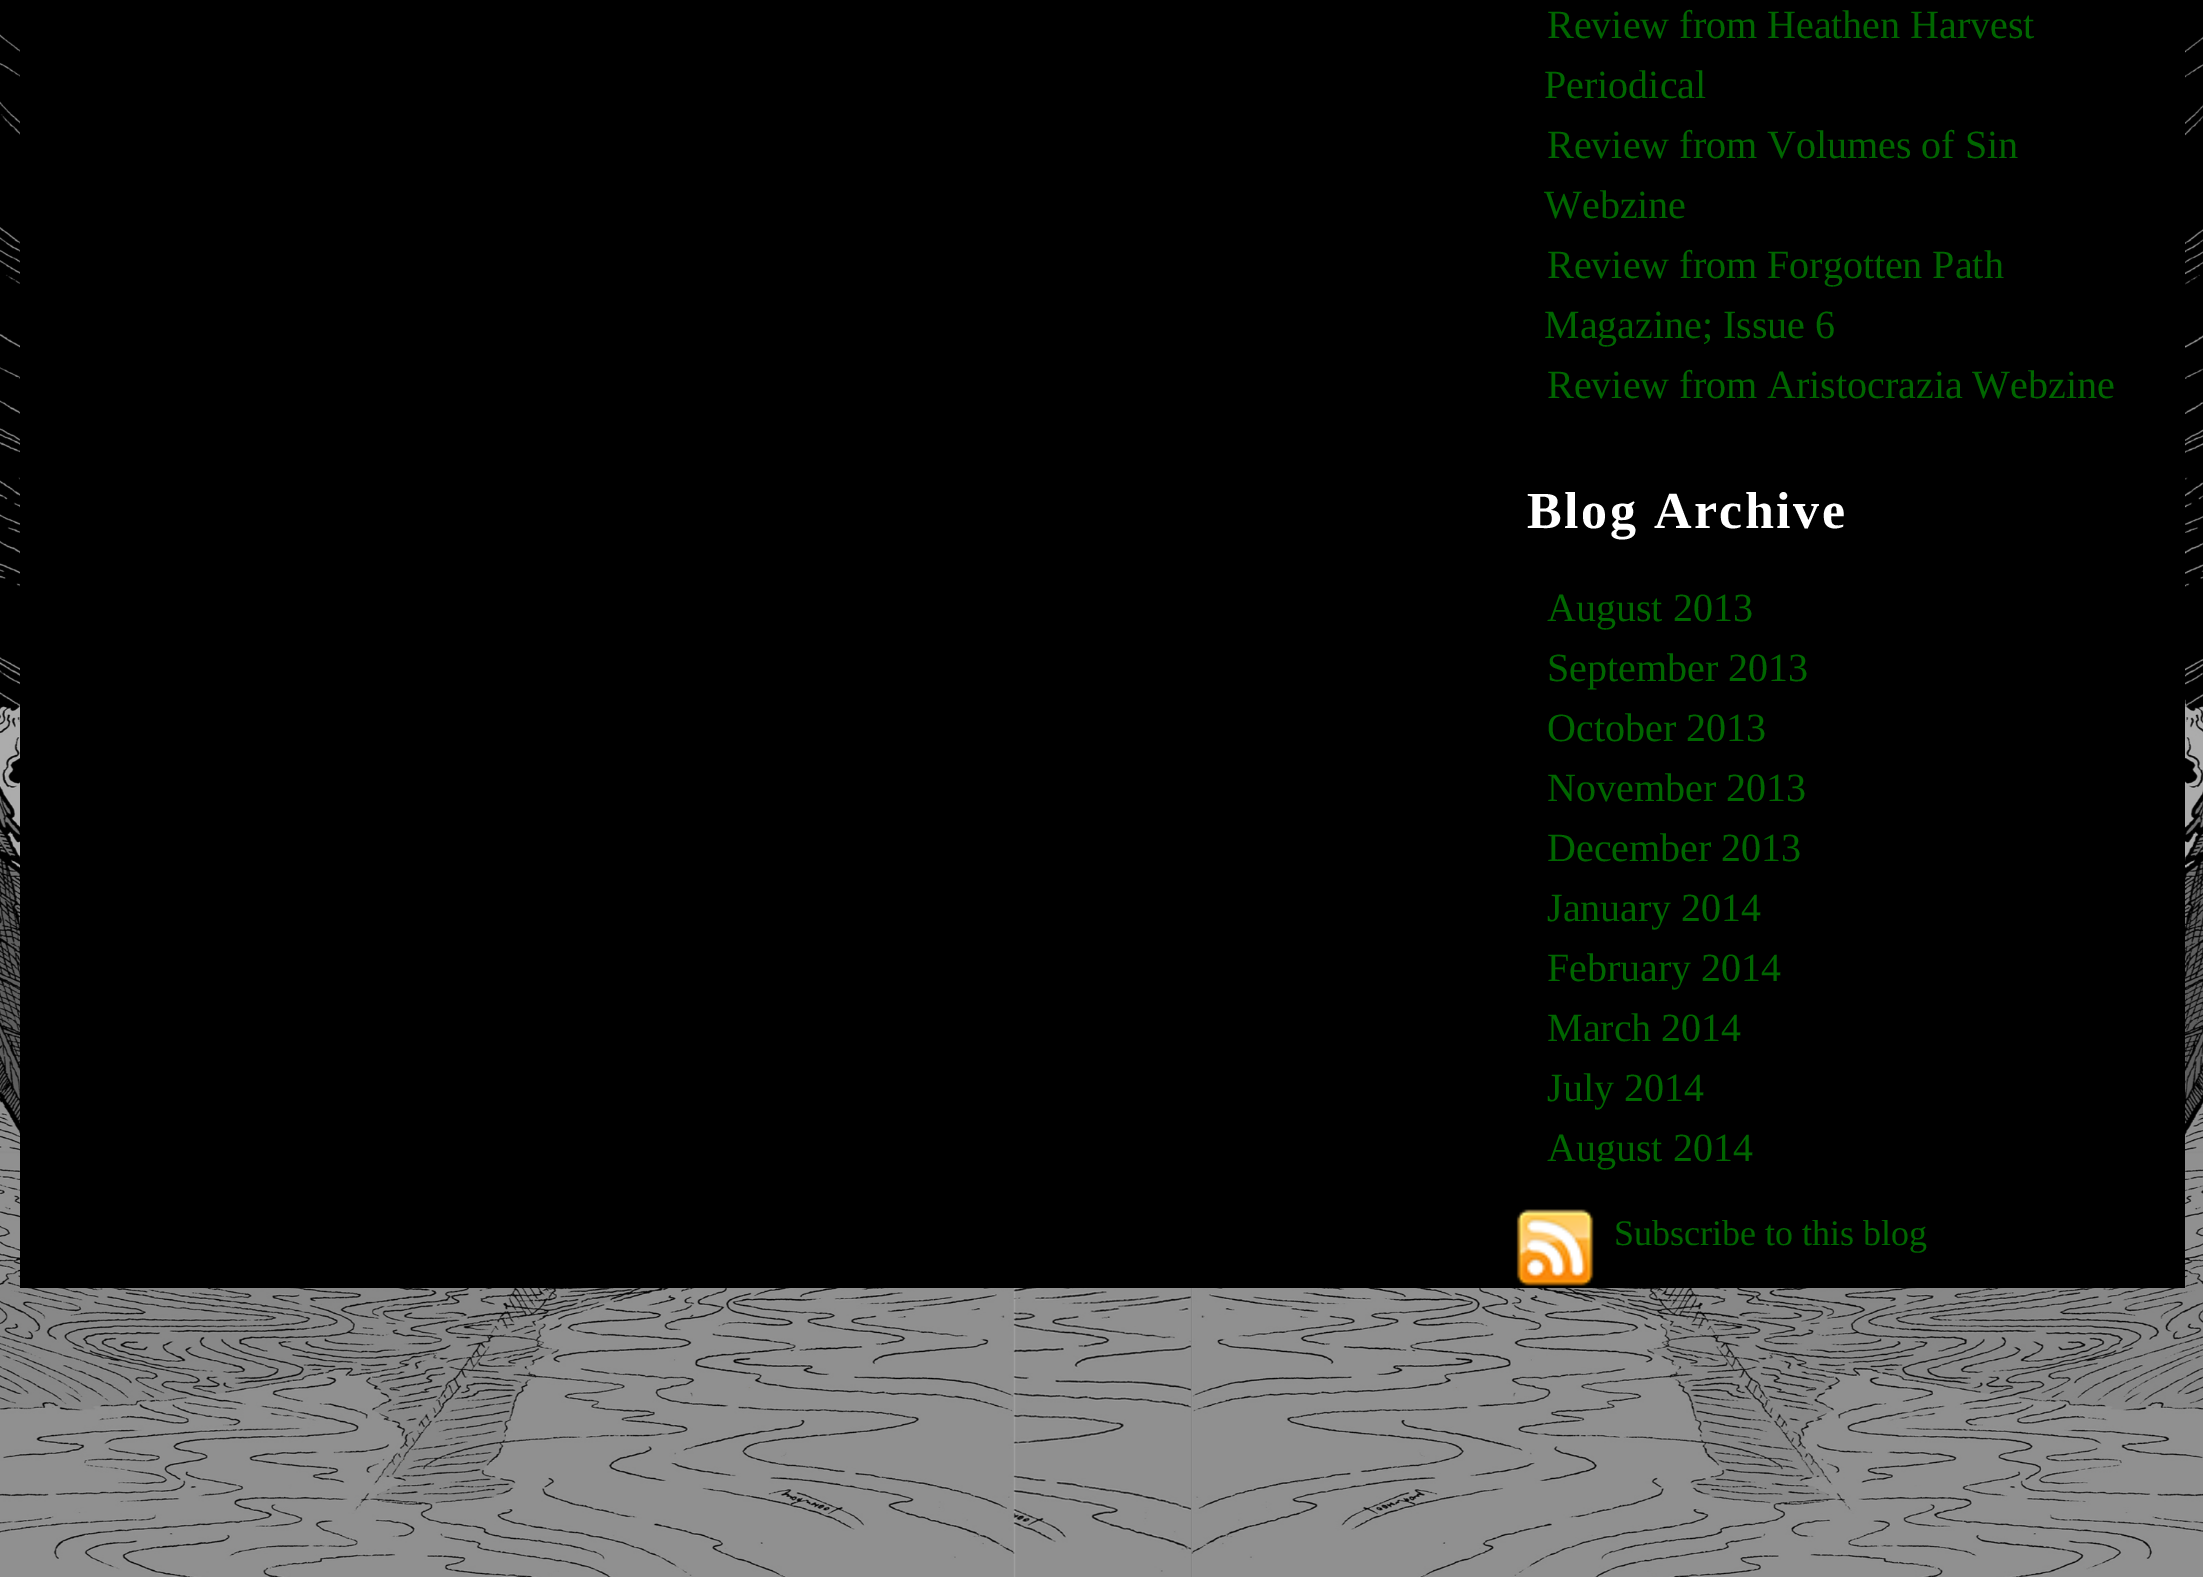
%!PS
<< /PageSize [2203 1577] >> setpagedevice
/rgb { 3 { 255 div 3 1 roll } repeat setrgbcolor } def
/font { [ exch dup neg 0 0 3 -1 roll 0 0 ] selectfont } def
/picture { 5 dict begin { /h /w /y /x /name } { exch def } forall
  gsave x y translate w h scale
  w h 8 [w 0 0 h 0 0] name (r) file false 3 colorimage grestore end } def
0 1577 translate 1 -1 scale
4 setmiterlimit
255 255 255 rgb
0 0 2203 1577 rectfill
(img/1.rgb) 0 0 2203 1577 picture
0 0 0 rgb
20 8 2165 1280 rectfill
(img/2.rgb) 1516 1209 78 77 picture
/LiberationSerif-Regular 40 font
0 102 0 rgb
[
  [(Review from Heathen Harvest) 1547 38]
  [(Periodical) 1544 98]
  [(Review from Volumes of Sin) 1547 158]
  [(Webzine) 1544 218]
  [(Review from Forgotten Path) 1547 278]
  [(Magazine; Issue 6) 1544 338]
  [(Review from Aristocrazia Webzine) 1547 398]
] { aload pop moveto show } forall
/LiberationSerif-Bold 52 font
255 255 255 rgb
1527 528 moveto 2.5 0 (Blog Archive) ashow
/LiberationSerif-Regular 40 font
0 102 0 rgb
[
  [(August 2013) 1547 621]
  [(September 2013) 1547 681]
  [(October 2013) 1547 741]
  [(November 2013) 1547 801]
  [(December 2013) 1547 861]
  [(January 2014) 1547 921]
  [(February 2014) 1547 981]
  [(March 2014) 1547 1041]
  [(July 2014) 1547 1101]
  [(August 2014) 1547 1161]
] { aload pop moveto show } forall
/LiberationSerif-Regular 36 font
1614 1245 moveto (Subscribe to this blog) show
showpage
